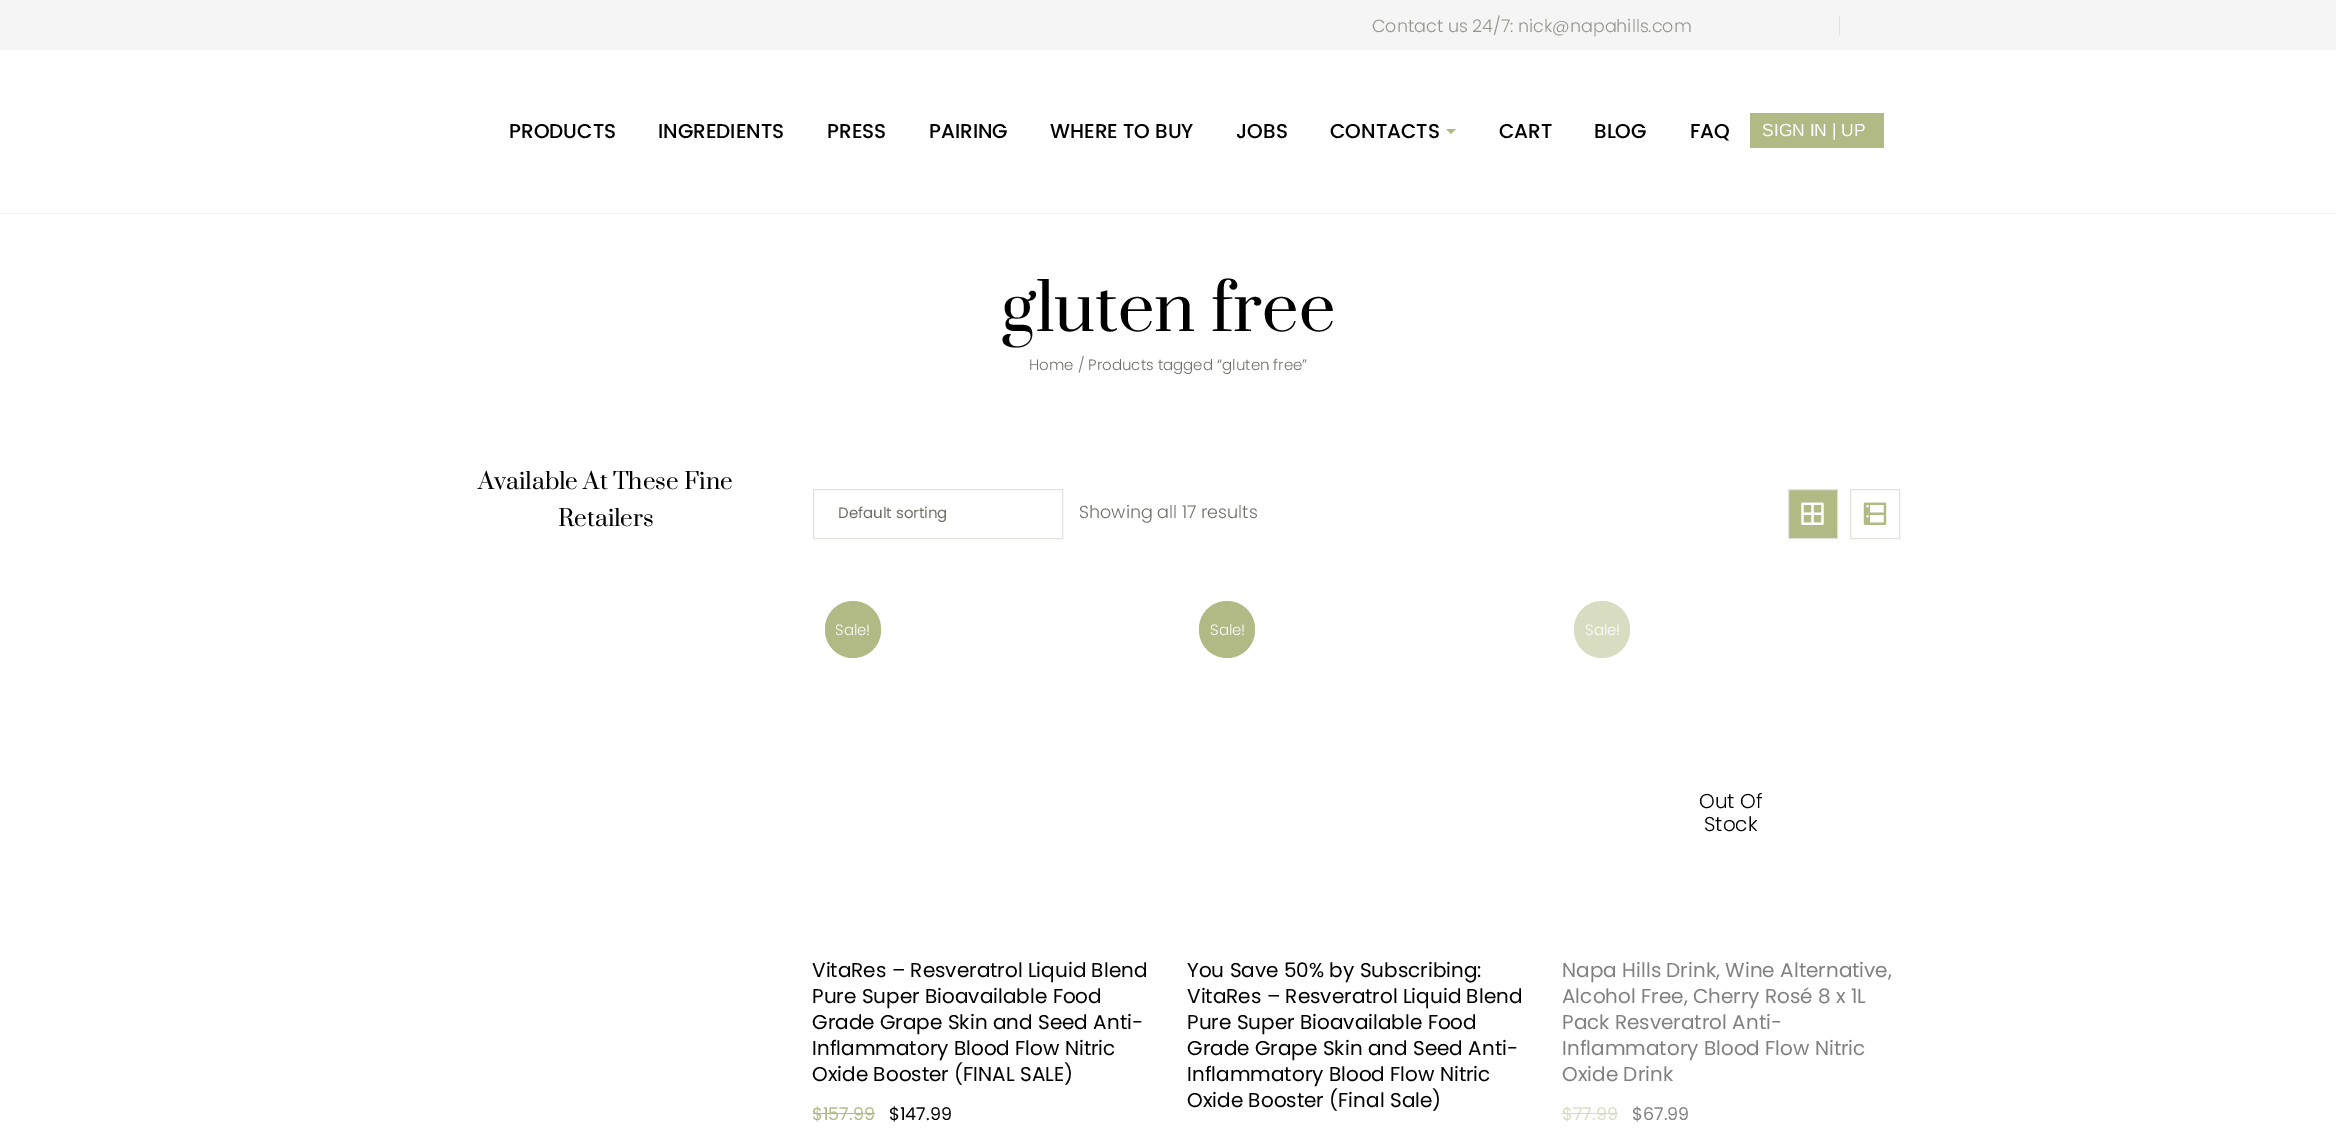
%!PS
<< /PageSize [2336 1135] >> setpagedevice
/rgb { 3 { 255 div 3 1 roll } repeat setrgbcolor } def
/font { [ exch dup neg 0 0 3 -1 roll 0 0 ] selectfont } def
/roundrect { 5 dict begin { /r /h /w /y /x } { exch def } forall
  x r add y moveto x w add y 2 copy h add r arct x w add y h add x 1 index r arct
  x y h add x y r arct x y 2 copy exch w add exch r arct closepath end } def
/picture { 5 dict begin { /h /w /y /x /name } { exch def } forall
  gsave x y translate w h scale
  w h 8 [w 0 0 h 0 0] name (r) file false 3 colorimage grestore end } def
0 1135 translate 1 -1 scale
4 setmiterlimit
255 255 255 rgb
0 0 2336 1135 rectfill
[
  [0 0 2336 50 245 245 245]
  [1839 16 1 19 226 226 224]
  [0 213 2336 1 239 240 237]
] { aload pop rgb rectfill } forall
177 186 133 rgb
1446 129 moveto 1456 129 lineto 1451 134 lineto closepath fill
1750 113 134 35 rectfill
226 227 220 rgb
813.5 489.5 249 49 rectstroke
177 186 133 rgb
1788.5 489.5 moveto 1837.5 489.5 lineto 1837.5 538.5 lineto 1788.5 538.5 lineto closepath gsave fill grestore
226 227 220 rgb
stroke
(img/1.rgb) 1801 502 23 23 picture
1850.5 489.5 49 49 rectstroke
(img/2.rgb) 1863 502 24 23 picture
177 186 133 rgb
825 601 56 57 28 roundrect fill
813 1113 62 1 rectfill
1199 601 56 57 28 roundrect fill
216 221 194 rgb
1574 601 56 57 28 roundrect fill
1561 1113 57 1 rectfill
/Poppins-Light 17.5 font
148 149 141 rgb
1372 32 moveto (Contact us 24/7: nick@napahills.com) show
/Poppins-Medium 20 font
0 0 0 rgb
[
  [(PRODUCTS) 509 138]
  [(INGREDIENTS) 658 138]
  [(PRESS) 827 138]
  [(PAIRING) 929 138]
  [(WHERE TO BUY) 1050 138]
  [(JOBS) 1236 138]
  [(CONTACTS) 1330 138]
  [(CART) 1499 138]
  [(BLOG) 1594 138]
  [(FAQ) 1690 138]
] { aload pop moveto show } forall
/LiberationSans-Regular 17.5 font
255 255 255 rgb
1762 136 moveto (SIGN IN | UP) show
/Prata-Regular 65 font
0 0 0 rgb
1001 331 moveto (gluten free) show
/Poppins-Light 15 font
110 111 105 rgb
1029 370 moveto (Home / Products tagged “gluten free”) show
/Prata-Regular 22.5 font
0 0 0 rgb
478 489 moveto (Available At These Fine) show
558 526 moveto (Retailers) show
/Poppins-Regular 15 font
110 111 105 rgb
838 518 moveto (Default sorting) show
/Poppins-Light 17.5 font
1079 518 moveto (Showing all 17 results) show
/Poppins-Light 15 font
255 255 255 rgb
835 635 moveto (Sale!) show
/Poppins-Regular 20 font
0 0 0 rgb
[
  [(VitaRes – Resveratrol Liquid Blend) 812 977]
  [(Pure Super Bioavailable Food) 812 1003]
  [(Grade Grape Skin and Seed Anti-) 812 1029]
  [(Inflammatory Blood Flow Nitric) 812 1055]
  [(Oxide Booster \(FINAL SALE\)) 812 1081]
] { aload pop moveto show } forall
/Poppins-Regular 17.5 font
177 186 133 rgb
812 1120 moveto ($157.99) show
0 0 0 rgb
889 1120 moveto ($147.99) show
/Poppins-Light 15 font
255 255 255 rgb
1210 635 moveto (Sale!) show
/Poppins-Regular 20 font
0 0 0 rgb
[
  [(You Save 50% by Subscribing:) 1187 977]
  [(VitaRes – Resveratrol Liquid Blend) 1187 1003]
  [(Pure Super Bioavailable Food) 1187 1029]
  [(Grade Grape Skin and Seed Anti-) 1187 1055]
  [(Inflammatory Blood Flow Nitric) 1187 1081]
  [(Oxide Booster \(Final Sale\)) 1187 1107]
] { aload pop moveto show } forall
/Poppins-Light 15 font
255 255 255 rgb
1585 635 moveto (Sale!) show
/Poppins-Light 20 font
0 0 0 rgb
1699 808 moveto (Out Of) show
1704 831 moveto (Stock) show
/Poppins-Regular 20 font
128 128 128 rgb
[
  [(Napa Hills Drink, Wine Alternative,) 1562 977]
  [(Alcohol Free, Cherry Rosé 8 x 1L) 1562 1003]
  [(Pack Resveratrol Anti-) 1562 1029]
  [(Inflammatory Blood Flow Nitric) 1562 1055]
  [(Oxide Drink) 1562 1081]
] { aload pop moveto show } forall
/Poppins-Regular 17.5 font
216 221 194 rgb
1562 1120 moveto ($77.99) show
128 128 128 rgb
1632 1120 moveto ($67.99) show
showpage
